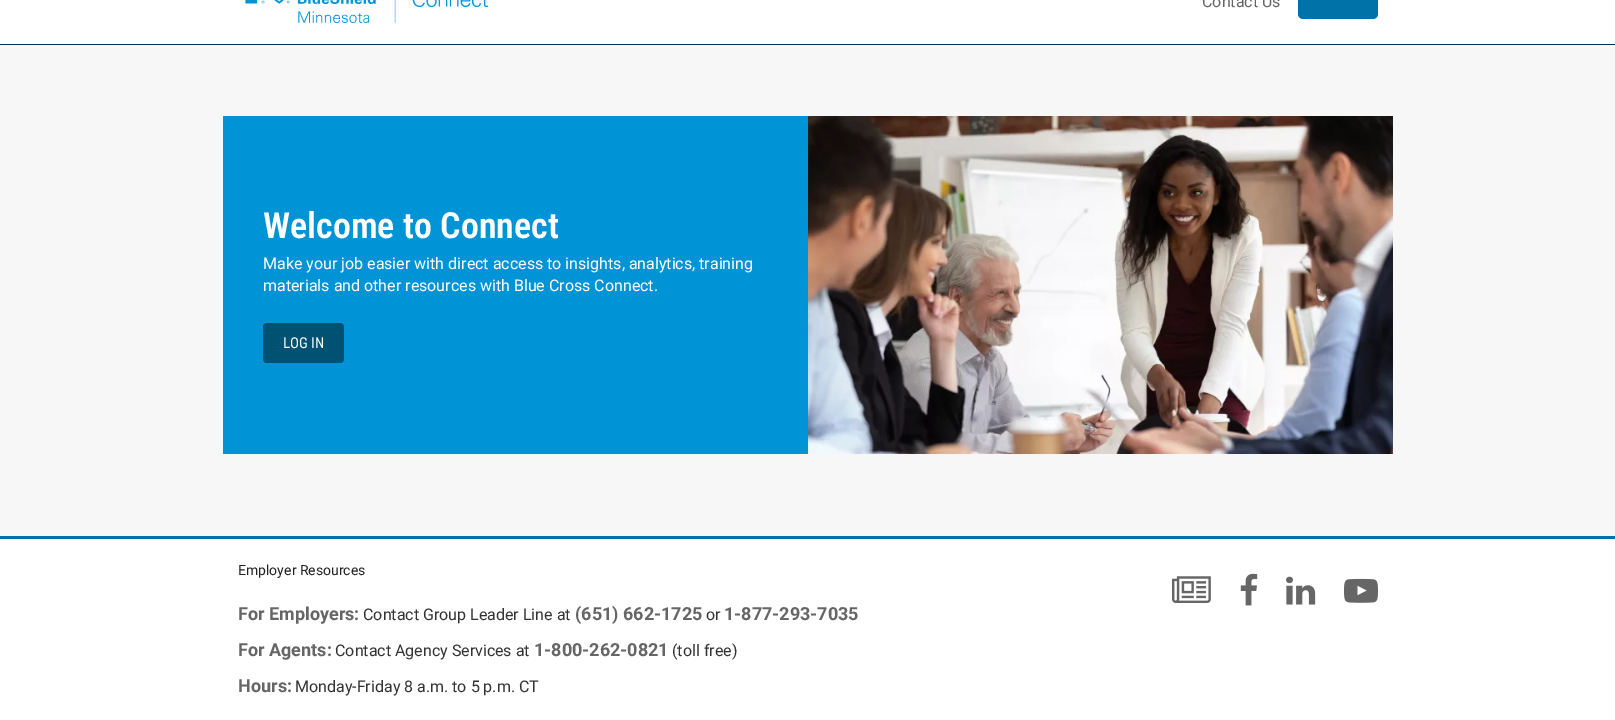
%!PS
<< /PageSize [1615 720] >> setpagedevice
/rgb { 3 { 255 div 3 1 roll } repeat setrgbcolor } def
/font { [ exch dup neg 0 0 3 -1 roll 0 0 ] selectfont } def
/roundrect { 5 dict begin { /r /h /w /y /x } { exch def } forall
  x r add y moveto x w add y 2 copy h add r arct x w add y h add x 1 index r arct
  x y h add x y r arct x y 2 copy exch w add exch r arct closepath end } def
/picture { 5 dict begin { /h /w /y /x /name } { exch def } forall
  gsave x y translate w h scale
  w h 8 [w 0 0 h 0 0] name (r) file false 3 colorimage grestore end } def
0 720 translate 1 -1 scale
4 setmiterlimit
255 255 255 rgb
0 0 1615 720 rectfill
0 51 89 rgb
0 44 1615 1 rectfill
(img/1.rgb) 245 0 243 23 picture
0 114 167 rgb
1298 -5 80 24 5 roundrect fill
247 247 247 rgb
0 45 1615 491 rectfill
0 148 215 rgb
223 116 585 338 rectfill
0 81 114 rgb
263 323 81 40 4 roundrect fill
(img/2.rgb) 808 116 585 338 picture
0 114 167 rgb
0 536 1615 3 rectfill
(img/3.rgb) 1172 576 39 27 picture
(img/4.rgb) 1240 573 18 33 picture
(img/5.rgb) 1286 576 30 29 picture
(img/6.rgb) 1344 578 34 25 picture
/Roboto-Regular 16 font
102 102 102 rgb
1202 7 moveto (Contact Us) show
/RobotoCondensed-SemiBold 36 font
255 255 255 rgb
263 238 moveto (Welcome to Connect) show
/Roboto-Regular 16 font
263 269 moveto (Make your job easier with direct access to insights, analytics, training) show
263 291 moveto (materials and other resources with Blue Cross Connect.) show
/RobotoCondensed-Regular 15 font
283 348 moveto (LOG IN) show
/Roboto-Regular 14 font
34 34 34 rgb
238 575 moveto (Employer Resources) show
/Roboto-Bold 18 font
102 102 102 rgb
238 620 moveto (For Employers:) show
/Roboto-Regular 16 font
51 51 51 rgb
363 620 moveto (Contact Group Leader Line at) show
/Roboto-Bold 18 font
102 102 102 rgb
575 620 moveto (\(651\) 662-1725) show
/Roboto-Regular 16 font
51 51 51 rgb
706 620 moveto (or) show
/Roboto-Bold 18 font
102 102 102 rgb
724 620 moveto (1-877-293-7035) show
238 656 moveto (For Agents:) show
/Roboto-Regular 16 font
51 51 51 rgb
335 656 moveto (Contact Agency Services at) show
/Roboto-Bold 18 font
102 102 102 rgb
534 656 moveto (1-800-262-0821) show
/Roboto-Regular 16 font
51 51 51 rgb
672 656 moveto (\(toll free\)) show
/Roboto-Bold 18 font
102 102 102 rgb
238 692 moveto (Hours:) show
/Roboto-Regular 16 font
51 51 51 rgb
295 692 moveto (Monday-Friday 8 a.m. to 5 p.m. CT) show
showpage
